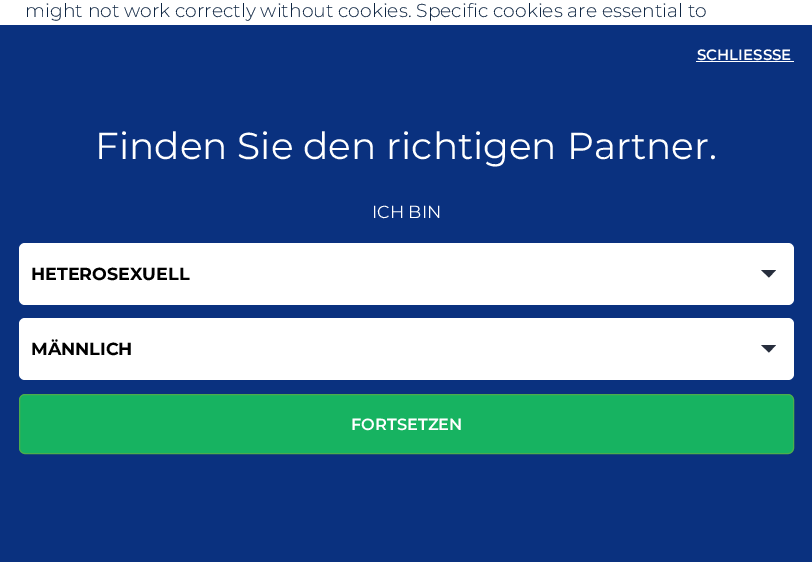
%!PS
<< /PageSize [812 562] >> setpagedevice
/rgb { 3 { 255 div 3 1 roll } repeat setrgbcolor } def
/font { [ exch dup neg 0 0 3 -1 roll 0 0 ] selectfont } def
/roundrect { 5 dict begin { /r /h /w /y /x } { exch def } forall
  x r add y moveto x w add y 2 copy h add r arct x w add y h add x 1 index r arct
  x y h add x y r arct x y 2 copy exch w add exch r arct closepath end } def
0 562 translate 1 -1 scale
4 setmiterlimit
255 255 255 rgb
0 0 812 562 rectfill
10 49 127 rgb
0 25 812 537 rectfill
255 255 255 rgb
696 61 98 1 rectfill
19 243 775 62 6 roundrect fill
39 46 61 rgb
761 270 moveto 776 270 lineto 769 277.5 lineto closepath fill
255 255 255 rgb
19 318 775 62 6 roundrect fill
39 46 61 rgb
761 345 moveto 776 345 lineto 769 352.5 lineto closepath fill
23 179 97 rgb
19.5 394.5 774 59 5.5 roundrect gsave fill grestore
76 174 76 rgb
stroke
/Montserrat-Light 18.75 font
13 36 65 rgb
25 17 moveto (might not work correctly without cookies. Specific cookies are essential to) show
/Montserrat-SemiBold 15 font
255 255 255 rgb
697 60 moveto (SCHLIESSSE) show
/Montserrat-Regular 37.5 font
95 159 moveto (Finden Sie den richtigen Partner.) show
/Montserrat-Regular 17.5 font
372 218 moveto (ICH BIN) show
/Montserrat-Bold 17.5 font
0 0 0 rgb
31 280 moveto (HETEROSEXUELL) show
31 355 moveto (MÄNNLICH) show
/Montserrat-SemiBold 16.25 font
255 255 255 rgb
351 430 moveto (FORTSETZEN) show
showpage
